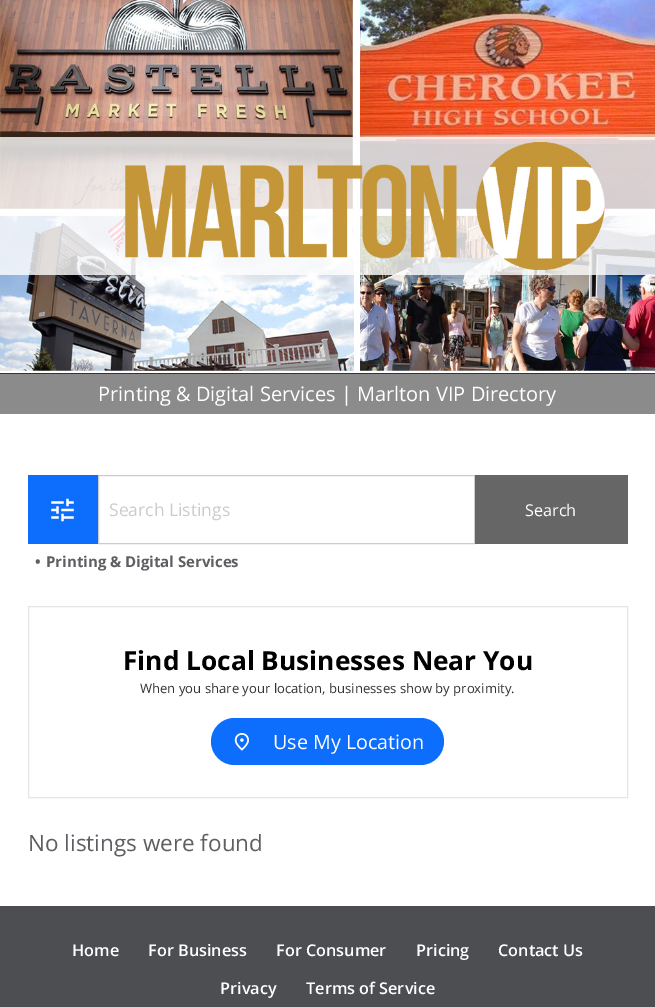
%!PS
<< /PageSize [655 1007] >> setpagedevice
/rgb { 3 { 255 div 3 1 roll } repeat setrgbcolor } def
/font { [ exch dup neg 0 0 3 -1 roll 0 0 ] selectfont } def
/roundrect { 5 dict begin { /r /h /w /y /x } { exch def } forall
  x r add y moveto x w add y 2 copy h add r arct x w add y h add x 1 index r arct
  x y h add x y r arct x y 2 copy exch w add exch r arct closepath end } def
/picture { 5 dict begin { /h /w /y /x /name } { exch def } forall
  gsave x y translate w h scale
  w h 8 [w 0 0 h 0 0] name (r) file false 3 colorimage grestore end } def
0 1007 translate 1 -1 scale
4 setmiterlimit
255 255 255 rgb
0 0 655 1007 rectfill
(img/1.rgb) 0 0 655 371 picture
[
  [0 374 655 40 139 139 139]
  [0 373 655 1 51 51 51]
  [28 475 70 69 13 110 253]
] { aload pop rgb rectfill } forall
(img/2.rgb) 51 498 23 24 picture
204 204 204 rgb
98.5 475.5 376 68 rectstroke
102 102 102 rgb
475 475 153 69 rectfill
229 229 229 rgb
28.5 606.5 599 191 rectstroke
13 110 253 rgb
211 718 233 47 23.5 roundrect fill
(img/3.rgb) 234 733 15 18 picture
77 78 81 rgb
0 906 655 101 rectfill
/OpenSans-Regular 20 font
255 255 255 rgb
98 401 moveto (Printing & Digital Services | Marlton VIP Directory) show
/OpenSans-Regular 17.5 font
204 204 204 rgb
109 516 moveto (Search Listings) show
/OpenSans-Regular 16.25 font
255 255 255 rgb
525 516 moveto (Search) show
/OpenSans-Bold 15 font
95 95 99 rgb
35 567 moveto (•) show
46 567 moveto (Printing & Digital Services) show
/OpenSans-Bold 26.25 font
0 0 0 rgb
123 670 moveto (Find Local Businesses Near You) show
/OpenSans-Regular 13.1 font
51 51 51 rgb
140 693 moveto (When you share your location, businesses show by proximity.) show
/OpenSans-Regular 19.75 font
255 255 255 rgb
273 749 moveto (Use My Location) show
/OpenSans-Regular 22.5 font
95 95 99 rgb
28 851 moveto (No listings were found) show
/OpenSans-SemiBold 16.25 font
255 255 255 rgb
[
  [(Home) 72 956]
  [(For Business) 148 956]
  [(For Consumer) 276 956]
  [(Pricing) 416 956]
  [(Contact Us) 498 956]
  [(Privacy) 220 994]
  [(Terms of Service) 306 994]
] { aload pop moveto show } forall
showpage
